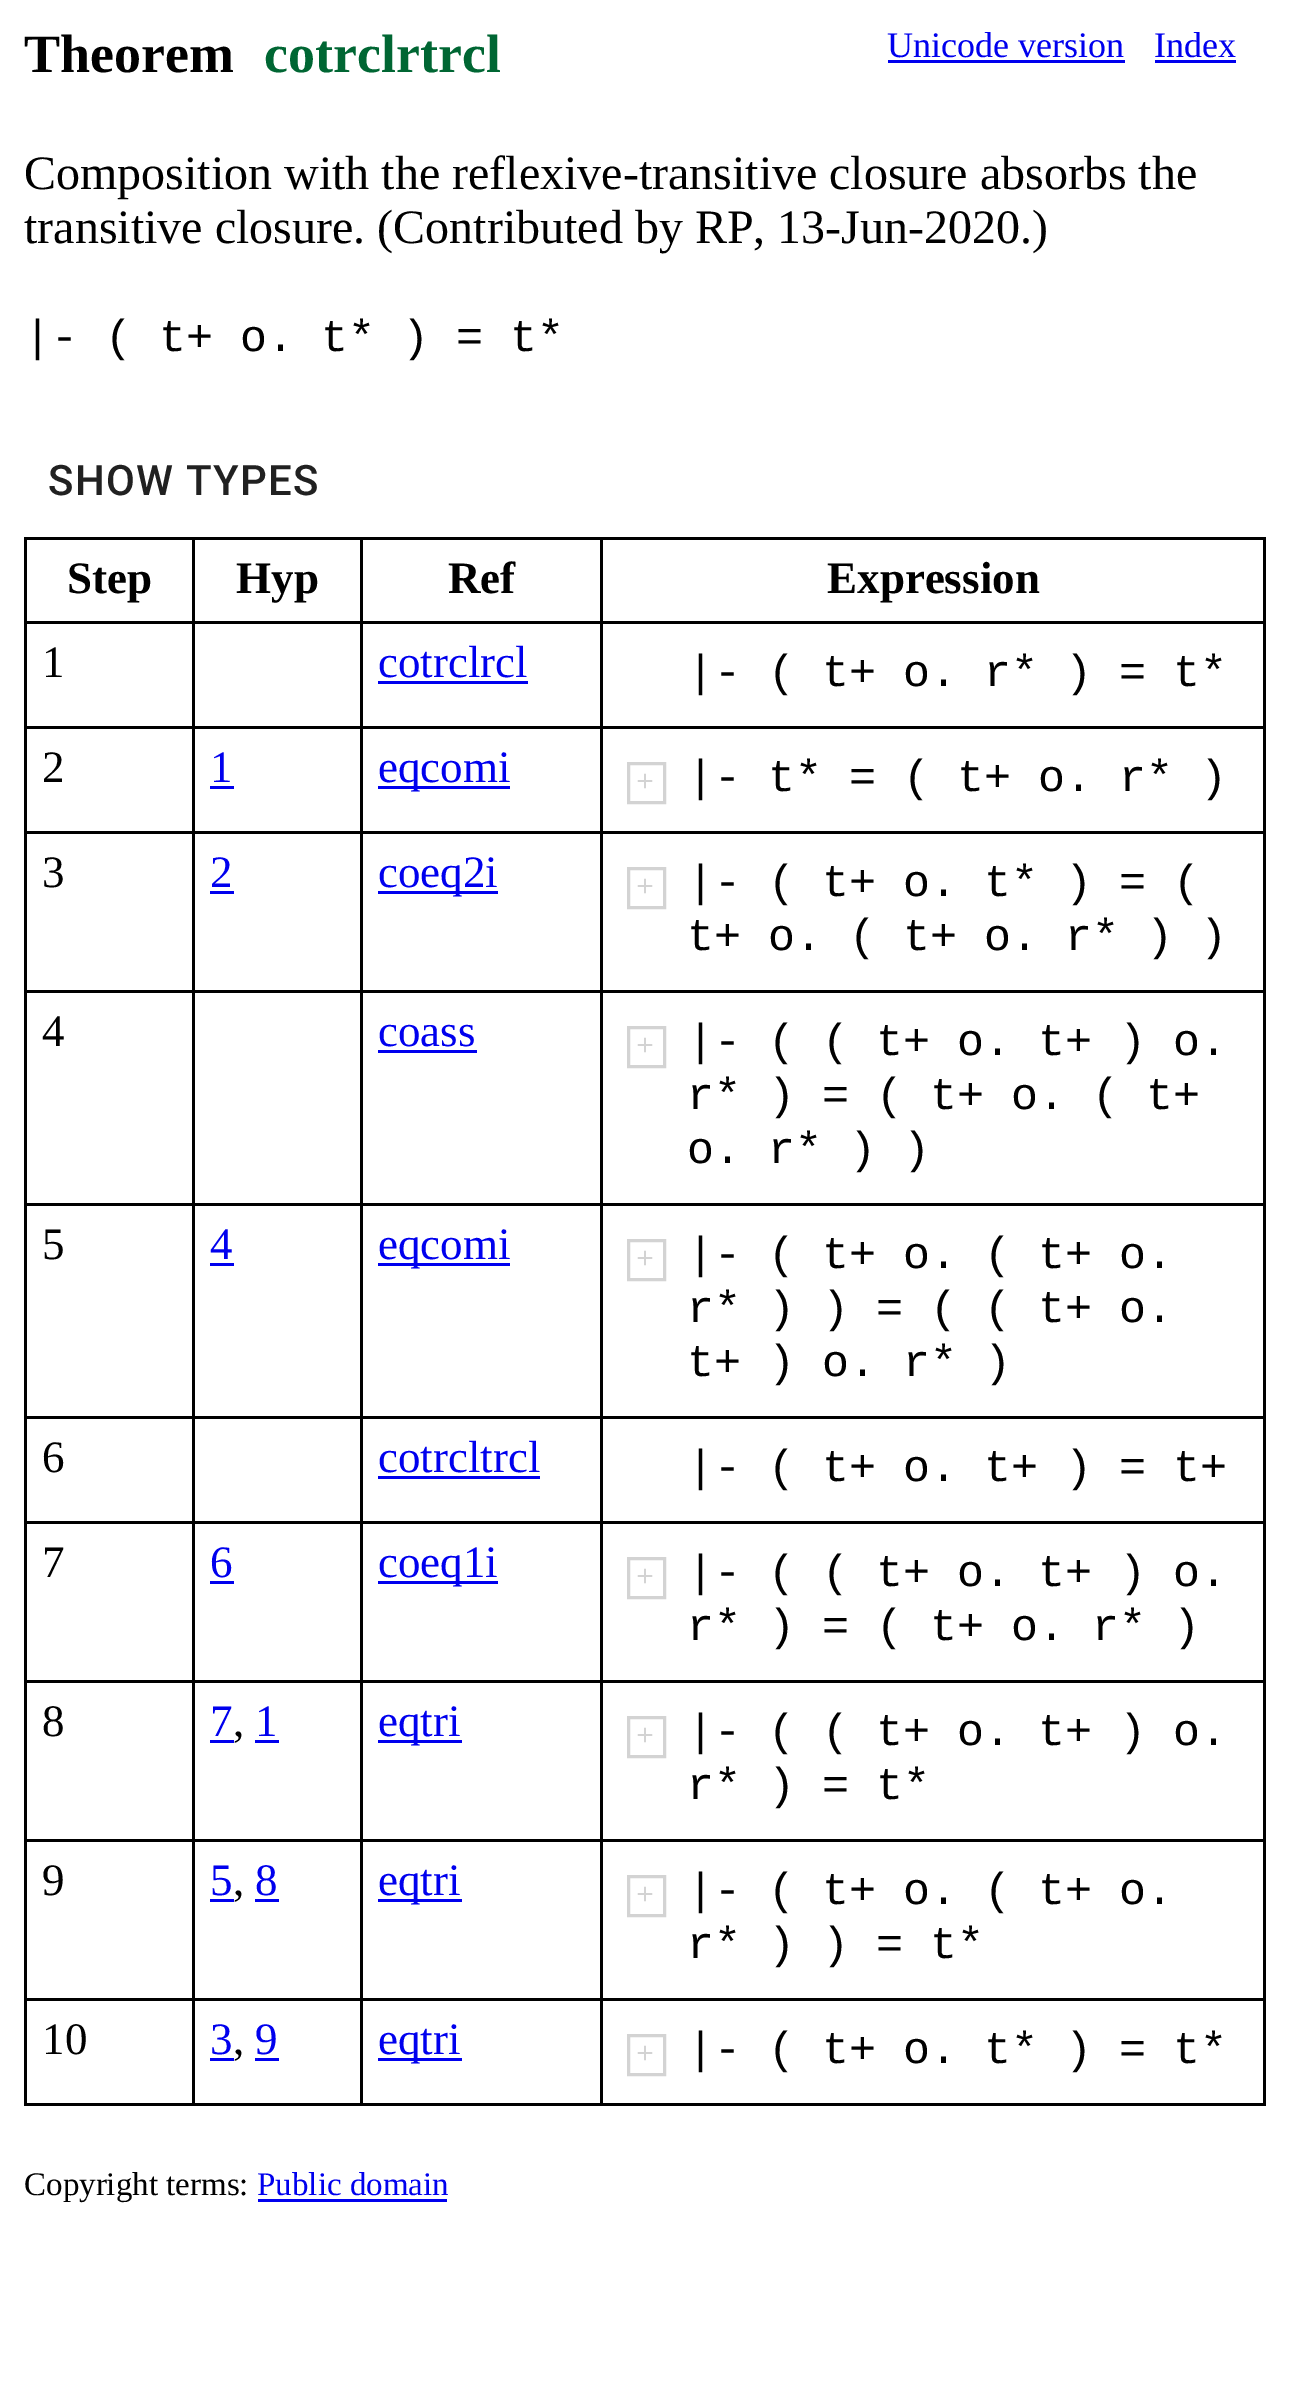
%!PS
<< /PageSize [1290 2404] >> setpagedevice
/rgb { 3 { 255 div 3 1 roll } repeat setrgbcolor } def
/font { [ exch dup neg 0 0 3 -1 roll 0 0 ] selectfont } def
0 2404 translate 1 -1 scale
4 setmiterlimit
255 255 255 rgb
0 0 1290 2404 rectfill
[
  [888 60 237 3 0 0 238]
  [1155 60 81 3 0 0 238]
  [600 537 666 3 0 0 0]
  [600 621 666 3 0 0 0]
  [600 726 666 3 0 0 0]
  [600 831 666 3 0 0 0]
  [600 990 666 3 0 0 0]
  [600 1203 666 3 0 0 0]
  [600 1416 666 3 0 0 0]
  [600 1521 666 3 0 0 0]
  [600 1680 666 3 0 0 0]
  [600 1839 666 3 0 0 0]
  [600 1998 666 3 0 0 0]
  [1263 1998 3 108 0 0 0]
  [600 2103 666 3 0 0 0]
  [600 1998 3 108 0 0 0]
  [360 1998 243 3 0 0 0]
  [600 1839 3 162 0 0 0]
  [360 1839 243 3 0 0 0]
  [600 1680 3 162 0 0 0]
  [360 1680 243 3 0 0 0]
  [600 1521 3 162 0 0 0]
  [360 1521 243 3 0 0 0]
  [600 1416 3 108 0 0 0]
  [360 1416 243 3 0 0 0]
  [600 1203 3 216 0 0 0]
  [360 1203 243 3 0 0 0]
  [600 990 3 216 0 0 0]
  [360 990 243 3 0 0 0]
  [600 831 3 162 0 0 0]
  [360 831 243 3 0 0 0]
  [600 726 3 108 0 0 0]
  [360 726 243 3 0 0 0]
  [600 621 3 108 0 0 0]
  [360 621 243 3 0 0 0]
  [600 537 3 87 0 0 0]
  [360 537 243 3 0 0 0]
  [360 2103 243 3 0 0 0]
  [360 1998 3 108 0 0 0]
  [192 1998 171 3 0 0 0]
  [360 1839 3 162 0 0 0]
  [192 1839 171 3 0 0 0]
  [360 1680 3 162 0 0 0]
  [192 1680 171 3 0 0 0]
  [360 1521 3 162 0 0 0]
  [192 1521 171 3 0 0 0]
  [360 1416 3 108 0 0 0]
  [192 1416 171 3 0 0 0]
  [360 1203 3 216 0 0 0]
  [192 1203 171 3 0 0 0]
  [360 990 3 216 0 0 0]
  [192 990 171 3 0 0 0]
  [360 831 3 162 0 0 0]
  [192 831 171 3 0 0 0]
  [360 726 3 108 0 0 0]
  [192 726 171 3 0 0 0]
  [360 621 3 108 0 0 0]
  [192 621 171 3 0 0 0]
  [360 537 3 87 0 0 0]
  [192 537 171 3 0 0 0]
  [192 2103 171 3 0 0 0]
  [192 1998 3 108 0 0 0]
  [24 1998 171 3 0 0 0]
  [192 1839 3 162 0 0 0]
  [24 1839 171 3 0 0 0]
  [192 1680 3 162 0 0 0]
  [24 1680 171 3 0 0 0]
  [192 1521 3 162 0 0 0]
  [24 1521 171 3 0 0 0]
  [192 1416 3 108 0 0 0]
  [24 1416 171 3 0 0 0]
  [192 1203 3 216 0 0 0]
  [24 1203 171 3 0 0 0]
  [192 990 3 216 0 0 0]
  [24 990 171 3 0 0 0]
  [192 831 3 162 0 0 0]
  [24 831 171 3 0 0 0]
  [192 726 3 108 0 0 0]
  [24 726 171 3 0 0 0]
  [192 621 3 108 0 0 0]
  [24 621 171 3 0 0 0]
  [192 537 3 87 0 0 0]
  [24 537 171 3 0 0 0]
  [24 2103 171 3 0 0 0]
  [24 1998 3 108 0 0 0]
  [24 1839 3 162 0 0 0]
  [24 1680 3 162 0 0 0]
  [24 1521 3 162 0 0 0]
  [24 1416 3 108 0 0 0]
  [24 1203 3 216 0 0 0]
  [24 990 3 216 0 0 0]
  [24 831 3 162 0 0 0]
  [24 726 3 108 0 0 0]
  [24 621 3 108 0 0 0]
  [24 537 3 87 0 0 0]
  [1263 1839 3 162 0 0 0]
  [1263 1680 3 162 0 0 0]
  [1263 1521 3 162 0 0 0]
  [1263 1416 3 108 0 0 0]
  [1263 1203 3 216 0 0 0]
  [1263 990 3 216 0 0 0]
  [1263 831 3 162 0 0 0]
  [1263 726 3 108 0 0 0]
  [1263 621 3 108 0 0 0]
  [1263 537 3 87 0 0 0]
  [378 681 150 3 0 0 238]
  [210 786 24 3 0 0 238]
  [378 786 132 3 0 0 238]
] { aload pop rgb rectfill } forall
211 211 211 rgb
3 setlinewidth
628.5 763.5 36 39 rectstroke
0 0 238 rgb
210 891 24 3 rectfill
378 891 120 3 rectfill
211 211 211 rgb
628.5 868.5 36 39 rectstroke
0 0 238 rgb
378 1050 99 3 rectfill
211 211 211 rgb
628.5 1027.5 36 39 rectstroke
0 0 238 rgb
210 1263 24 3 rectfill
378 1263 132 3 rectfill
211 211 211 rgb
628.5 1240.5 36 39 rectstroke
[
  [378 1476 162 3 0 0 238]
  [210 1581 24 3 0 0 238]
  [378 1581 120 3 0 0 238]
] { aload pop rgb rectfill } forall
211 211 211 rgb
628.5 1558.5 36 39 rectstroke
[
  [210 1740 24 3 0 0 238]
  [255 1740 24 3 0 0 238]
  [378 1740 84 3 0 0 238]
] { aload pop rgb rectfill } forall
211 211 211 rgb
628.5 1717.5 36 39 rectstroke
[
  [210 1899 24 3 0 0 238]
  [255 1899 24 3 0 0 238]
  [378 1899 84 3 0 0 238]
] { aload pop rgb rectfill } forall
211 211 211 rgb
628.5 1876.5 36 39 rectstroke
[
  [210 2058 24 3 0 0 238]
  [255 2058 24 3 0 0 238]
  [378 2058 84 3 0 0 238]
] { aload pop rgb rectfill } forall
211 211 211 rgb
628.5 2035.5 36 39 rectstroke
0 0 238 rgb
258 2199 189 3 rectfill
/LiberationSerif-Bold 54 font
0 0 0 rgb
24 72 moveto (Theorem) show
0 102 51 rgb
264 72 moveto (cotrclrtrcl) show
/LiberationSerif-Regular 36 font
0 0 238 rgb
887 57 moveto (Unicode version) show
1154 57 moveto (Index) show
/LiberationSerif-Regular 48 font
0 0 0 rgb
24 189 moveto (Composition with the reflexive-transitive closure absorbs the) show
24 243 moveto (transitive closure. \(Contributed by RP, 13-Jun-2020.\)) show
/LiberationMono-Regular 45 font
24 351 moveto (|- \( t+ o. t* \) = t*) show
/Roboto-Medium 42 font
33 33 33 rgb
48 495 moveto 1.25 0 (SHOW TYPES) ashow
/LiberationSerif-Bold 45 font
0 0 0 rgb
[
  [(Step) 67 593]
  [(Hyp) 236 593]
  [(Ref) 448 593]
  [(Expression) 827 593]
] { aload pop moveto show } forall
/LiberationSerif-Regular 45 font
42 677 moveto (1) show
0 0 238 rgb
378 677 moveto (cotrclrcl) show
/LiberationMono-Regular 45 font
0 0 0 rgb
687 686 moveto (|- \( t+ o. r* \) = t*) show
/LiberationSerif-Regular 45 font
42 782 moveto (2) show
0 0 238 rgb
210 782 moveto (1) show
378 782 moveto (eqcomi) show
/LiberationMono-Regular 30 font
211 211 211 rgb
636 791 moveto (+) show
/LiberationMono-Regular 45 font
0 0 0 rgb
687 791 moveto (|- t* = \( t+ o. r* \)) show
/LiberationSerif-Regular 45 font
42 887 moveto (3) show
0 0 238 rgb
210 887 moveto (2) show
378 887 moveto (coeq2i) show
/LiberationMono-Regular 30 font
211 211 211 rgb
636 896 moveto (+) show
/LiberationMono-Regular 45 font
0 0 0 rgb
687 896 moveto (|- \( t+ o. t* \) = \() show
687 950 moveto (t+ o. \( t+ o. r* \) \)) show
/LiberationSerif-Regular 45 font
42 1046 moveto (4) show
0 0 238 rgb
378 1046 moveto (coass) show
/LiberationMono-Regular 30 font
211 211 211 rgb
636 1055 moveto (+) show
/LiberationMono-Regular 45 font
0 0 0 rgb
[
  [(|- \( \( t+ o. t+ \) o.) 687 1055]
  [(r* \) = \( t+ o. \( t+) 687 1109]
  [(o. r* \) \)) 687 1163]
] { aload pop moveto show } forall
/LiberationSerif-Regular 45 font
42 1259 moveto (5) show
0 0 238 rgb
210 1259 moveto (4) show
378 1259 moveto (eqcomi) show
/LiberationMono-Regular 30 font
211 211 211 rgb
636 1268 moveto (+) show
/LiberationMono-Regular 45 font
0 0 0 rgb
[
  [(|- \( t+ o. \( t+ o.) 687 1268]
  [(r* \) \) = \( \( t+ o.) 687 1322]
  [(t+ \) o. r* \)) 687 1376]
] { aload pop moveto show } forall
/LiberationSerif-Regular 45 font
42 1472 moveto (6) show
0 0 238 rgb
378 1472 moveto (cotrcltrcl) show
/LiberationMono-Regular 45 font
0 0 0 rgb
687 1481 moveto (|- \( t+ o. t+ \) = t+) show
/LiberationSerif-Regular 45 font
42 1577 moveto (7) show
0 0 238 rgb
210 1577 moveto (6) show
378 1577 moveto (coeq1i) show
/LiberationMono-Regular 30 font
211 211 211 rgb
636 1586 moveto (+) show
/LiberationMono-Regular 45 font
0 0 0 rgb
687 1586 moveto (|- \( \( t+ o. t+ \) o.) show
687 1640 moveto (r* \) = \( t+ o. r* \)) show
/LiberationSerif-Regular 45 font
42 1736 moveto (8) show
0 0 238 rgb
210 1736 moveto (7) show
0 0 0 rgb
233 1736 moveto (,) show
0 0 238 rgb
255 1736 moveto (1) show
378 1736 moveto (eqtri) show
/LiberationMono-Regular 30 font
211 211 211 rgb
636 1745 moveto (+) show
/LiberationMono-Regular 45 font
0 0 0 rgb
687 1745 moveto (|- \( \( t+ o. t+ \) o.) show
687 1799 moveto (r* \) = t*) show
/LiberationSerif-Regular 45 font
42 1895 moveto (9) show
0 0 238 rgb
210 1895 moveto (5) show
0 0 0 rgb
233 1895 moveto (,) show
0 0 238 rgb
255 1895 moveto (8) show
378 1895 moveto (eqtri) show
/LiberationMono-Regular 30 font
211 211 211 rgb
636 1904 moveto (+) show
/LiberationMono-Regular 45 font
0 0 0 rgb
687 1904 moveto (|- \( t+ o. \( t+ o.) show
687 1958 moveto (r* \) \) = t*) show
/LiberationSerif-Regular 45 font
42 2054 moveto (10) show
0 0 238 rgb
210 2054 moveto (3) show
0 0 0 rgb
233 2054 moveto (,) show
0 0 238 rgb
255 2054 moveto (9) show
378 2054 moveto (eqtri) show
/LiberationMono-Regular 30 font
211 211 211 rgb
636 2063 moveto (+) show
/LiberationMono-Regular 45 font
0 0 0 rgb
687 2063 moveto (|- \( t+ o. t* \) = t*) show
/LiberationSerif-Regular 33 font
24 2195 moveto (Copyright terms:) show
0 0 238 rgb
257 2195 moveto (Public domain) show
showpage
